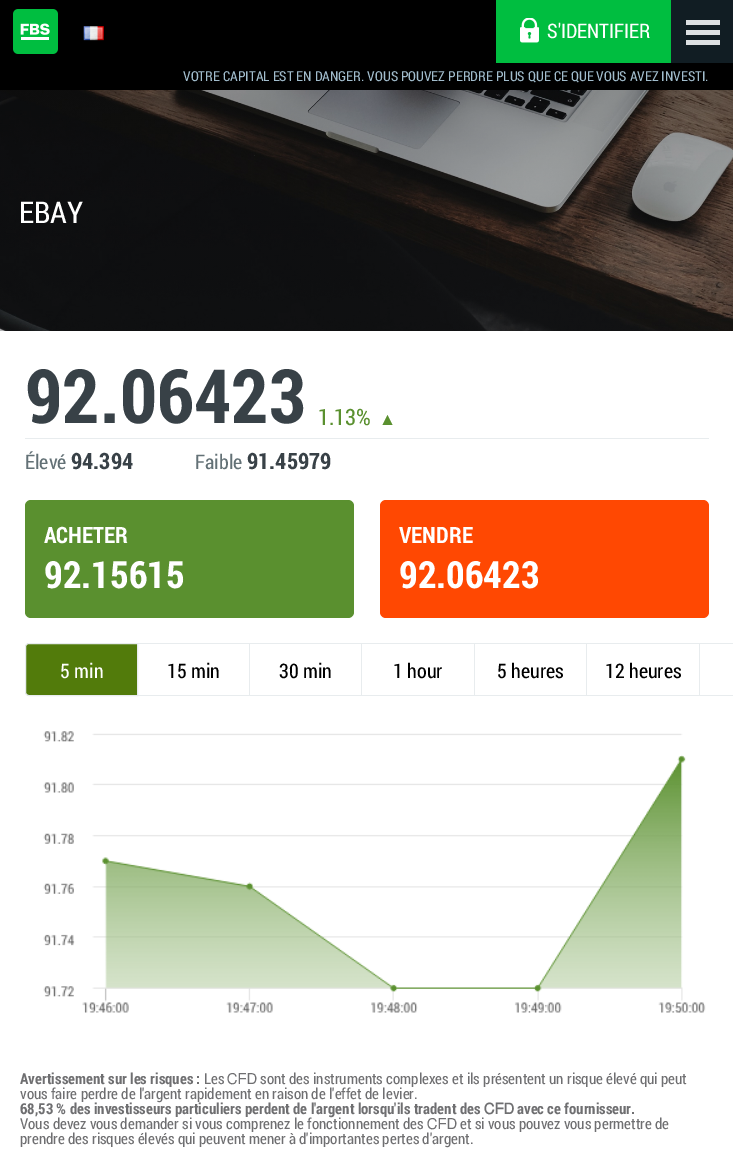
%!PS
<< /PageSize [733 1154] >> setpagedevice
/rgb { 3 { 255 div 3 1 roll } repeat setrgbcolor } def
/font { [ exch dup neg 0 0 3 -1 roll 0 0 ] selectfont } def
/roundrect { 5 dict begin { /r /h /w /y /x } { exch def } forall
  x r add y moveto x w add y 2 copy h add r arct x w add y h add x 1 index r arct
  x y h add x y r arct x y 2 copy exch w add exch r arct closepath end } def
/picture { 5 dict begin { /h /w /y /x /name } { exch def } forall
  gsave x y translate w h scale
  w h 8 [w 0 0 h 0 0] name (r) file false 3 colorimage grestore end } def
0 1154 translate 1 -1 scale
4 setmiterlimit
255 255 255 rgb
0 0 733 1154 rectfill
0 0 0 rgb
0 0 496 63 rectfill
(img/1.rgb) 13 9 45 45 picture
[
  [671 0 62 63 17 29 35]
  [686 20 34 5 220 223 225]
  [686 30 34 5 220 223 225]
  [686 40 34 5 220 223 225]
] { aload pop rgb rectfill } forall
(img/2.rgb) 83 26 21 15 picture
0 190 64 rgb
496 0 175 63 rectfill
(img/3.rgb) 520 18 19 25 picture
0 0 0 rgb
0 63 733 27 rectfill
(img/4.rgb) 0 90 733 241 picture
232 236 238 rgb
25 438 684 1 rectfill
90 144 47 rgb
387.5 415 moveto 392.5 425 lineto 382.5 425 lineto closepath eofill
25 500 329 118 6 roundrect fill
255 72 2 rgb
380 500 329 118 6 roundrect fill
82 123 11 rgb
29 643.5 moveto 137.5 643.5 lineto 137.5 695.5 lineto 29 695.5 lineto 27 695.5 25.5 694 25.5 692 curveto 25.5 647 lineto 25.5 645 27 643.5 29 643.5 curveto closepath gsave fill grestore
232 236 238 rgb
stroke
[
  [138 643 595 1 232 236 238]
  [249 643 1 53 232 236 238]
  [138 695 112 1 232 236 238]
  [361 643 1 53 232 236 238]
  [250 695 113 1 232 236 238]
  [474 643 1 53 232 236 238]
  [363 695 112 1 232 236 238]
  [586 643 1 53 232 236 238]
  [475 695 113 1 232 236 238]
  [699 643 1 53 232 236 238]
  [588 695 145 1 232 236 238]
] { aload pop rgb rectfill } forall
(img/5.rgb) 43 731 663 282 picture
/RobotoCondensed-Regular 20 font
255 255 255 rgb
547 38 moveto (S'IDENTIFIER) show
/RobotoCondensed-Regular 13.75 font
162 189 205 rgb
183 81 moveto (VOTRE CAPITAL EST EN DANGER. VOUS POUVEZ PERDRE PLUS QUE CE QUE VOUS AVEZ INVESTI.) show
/RobotoCondensed-Regular 30 font
255 255 255 rgb
19 223 moveto (EBAY) show
/RobotoCondensed-Bold 75 font
56 65 71 rgb
25 423 moveto (92.06423) show
/RobotoCondensed-Regular 22.5 font
90 144 47 rgb
318 425 moveto (1.13%) show
/RobotoCondensed-Regular 20 font
99 113 118 rgb
25 469 moveto (Élevé) show
/RobotoCondensed-Bold 22.5 font
56 65 71 rgb
71 469 moveto (94.394) show
/RobotoCondensed-Regular 20 font
99 113 118 rgb
195 469 moveto (Faible) show
/RobotoCondensed-Bold 22.5 font
56 65 71 rgb
247 469 moveto (91.45979) show
255 255 255 rgb
44 543 moveto (ACHETER) show
/RobotoCondensed-Bold 37.5 font
44 588 moveto (92.15615) show
/RobotoCondensed-Bold 22.5 font
399 543 moveto (VENDRE) show
/RobotoCondensed-Bold 37.5 font
399 588 moveto (92.06423) show
/RobotoCondensed-Regular 20 font
60 678 moveto (5 min) show
0 0 0 rgb
[
  [(15 min) 167 678]
  [(30 min) 279 678]
  [(1 hour) 393 678]
  [(5 heures) 497 678]
  [(12 heures) 605 678]
] { aload pop moveto show } forall
/RobotoCondensed-Bold 15 font
111 111 113 rgb
20 1084 moveto (Avertissement sur les risques :) show
/RobotoCondensed-Regular 15 font
204 1084 moveto (Les) show
/FreeSans-Regular 15 font
227 1084 moveto (ᏟᖴᎠ) show
/RobotoCondensed-Regular 15 font
260 1084 moveto (sont des instruments complexes et ils présentent un risque élevé qui peut) show
20 1099 moveto (vous faire perdre de l'argent rapidement en raison de l'effet de levier.) show
/RobotoCondensed-Bold 15 font
20 1114 moveto (68,53 % des investisseurs particuliers perdent de l'argent lorsqu'ils tradent des) show
/FreeSans-Bold 15 font
484 1114 moveto (ᏟᖴᎠ) show
/RobotoCondensed-Bold 15 font
517 1114 moveto (avec ce fournisseur.) show
/RobotoCondensed-Regular 15 font
20 1129 moveto (Vous devez vous demander si vous comprenez le fonctionnement des) show
/FreeSans-Regular 15 font
427 1129 moveto (ᏟᖴᎠ) show
/RobotoCondensed-Regular 15 font
460 1129 moveto (et si vous pouvez vous permettre de) show
20 1144 moveto (prendre des risques élevés qui peuvent mener à d'importantes pertes d'argent.) show
showpage
